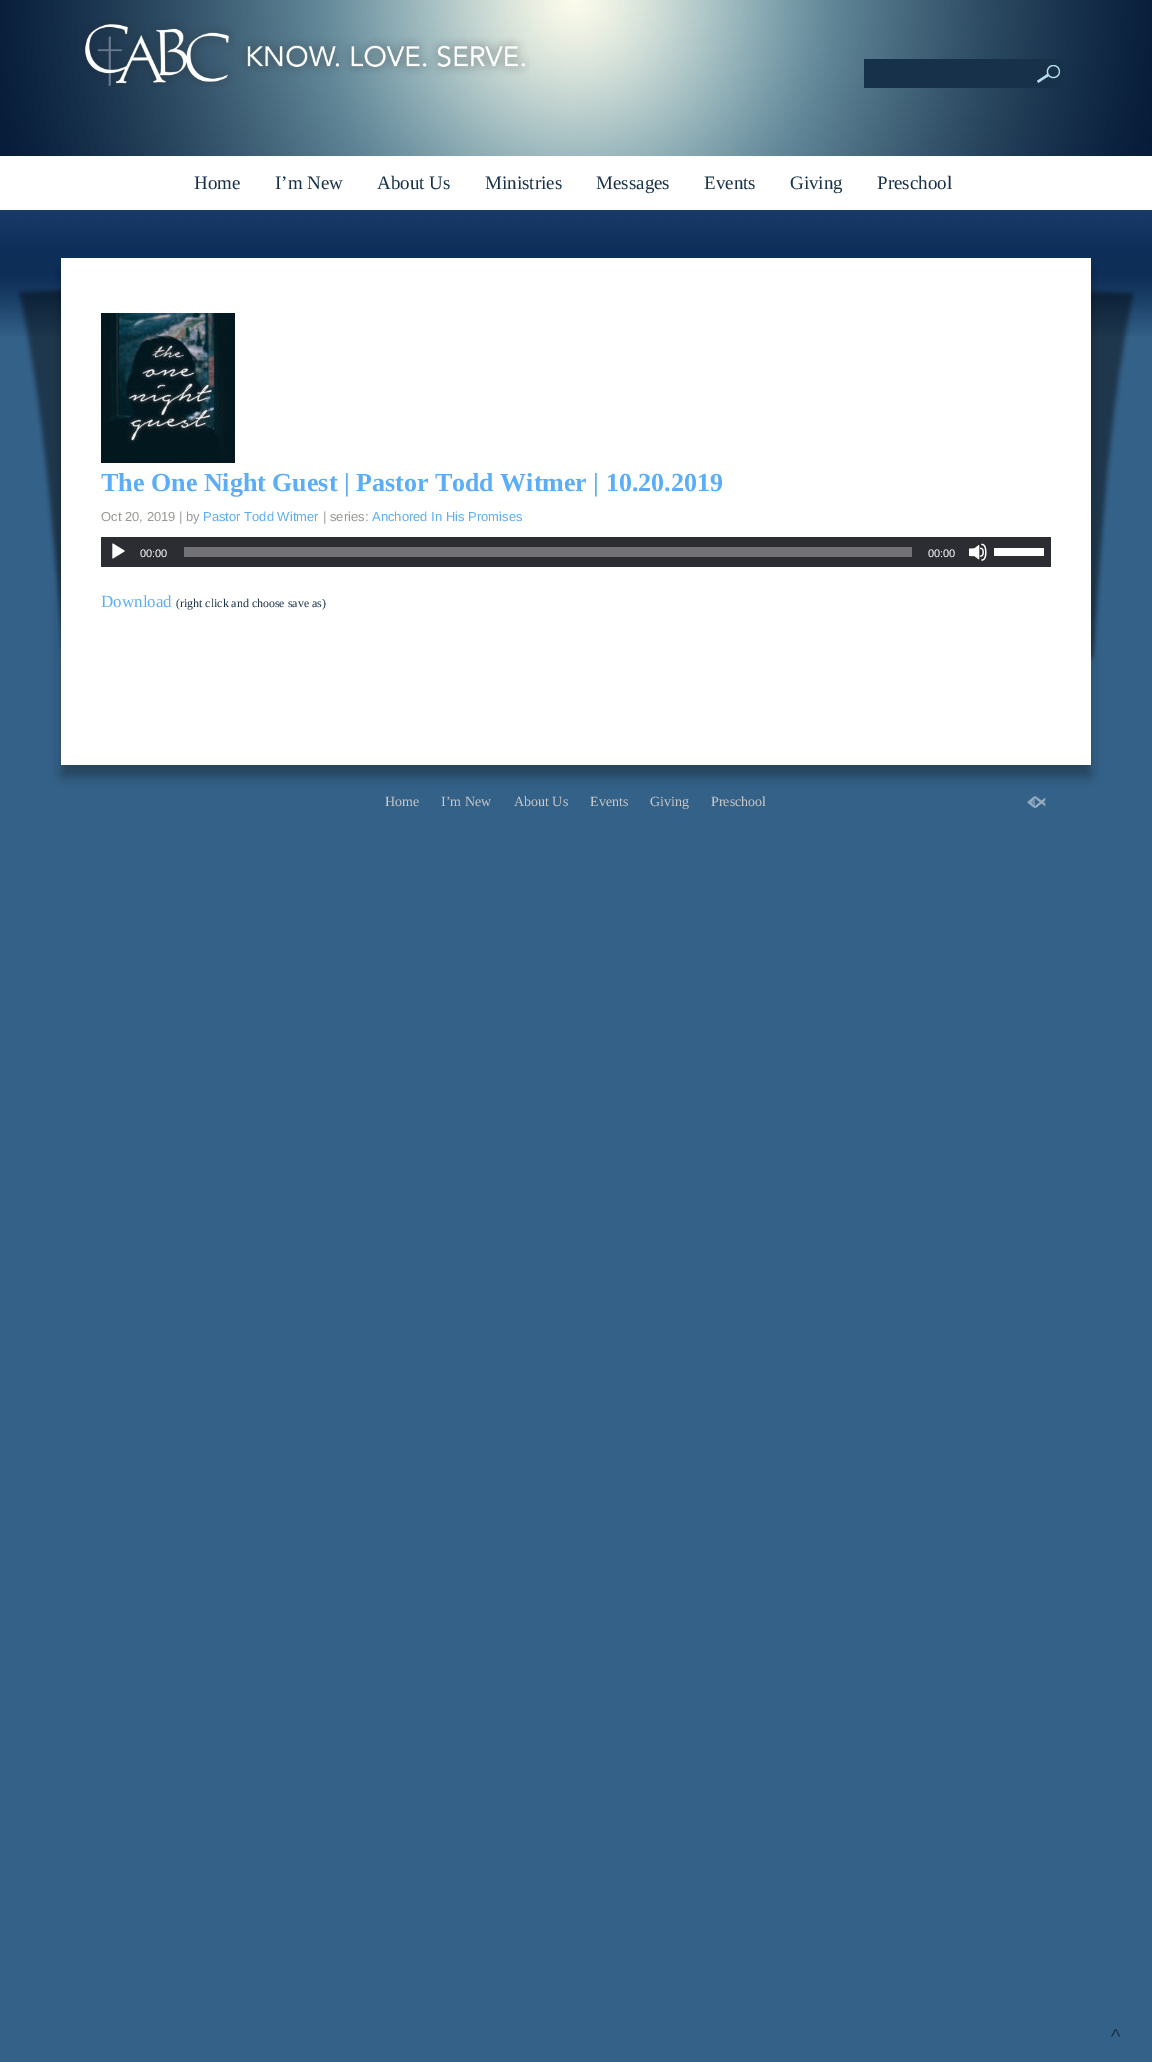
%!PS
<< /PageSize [1152 2062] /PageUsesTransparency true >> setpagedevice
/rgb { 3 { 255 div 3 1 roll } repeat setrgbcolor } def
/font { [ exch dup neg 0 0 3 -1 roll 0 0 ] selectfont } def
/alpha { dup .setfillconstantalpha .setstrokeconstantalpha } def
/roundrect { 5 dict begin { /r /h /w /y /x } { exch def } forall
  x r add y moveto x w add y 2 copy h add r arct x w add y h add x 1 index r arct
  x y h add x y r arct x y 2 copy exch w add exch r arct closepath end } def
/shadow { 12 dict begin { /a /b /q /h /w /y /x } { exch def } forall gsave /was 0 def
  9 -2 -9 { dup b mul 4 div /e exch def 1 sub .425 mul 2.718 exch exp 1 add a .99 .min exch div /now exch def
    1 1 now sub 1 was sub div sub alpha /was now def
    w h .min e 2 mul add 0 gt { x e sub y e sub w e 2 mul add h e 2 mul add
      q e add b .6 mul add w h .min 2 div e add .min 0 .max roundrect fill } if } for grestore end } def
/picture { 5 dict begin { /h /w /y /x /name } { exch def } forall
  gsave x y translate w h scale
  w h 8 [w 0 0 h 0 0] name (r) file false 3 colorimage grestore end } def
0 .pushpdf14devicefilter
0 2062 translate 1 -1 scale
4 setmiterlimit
52 97 136 rgb
0 0 1152 2062 rectfill
(img/1.rgb) 0 156 1152 180 picture
(img/2.rgb) 0 0 1152 156 picture
(img/3.rgb) 82 20 448 67 picture
23 49 75 rgb
864 59 200 29 rectfill
(img/4.rgb) 1037 65 23 18 picture
(img/5.rgb) 17 287 1119 374 picture
0 0 0 rgb
61 270 1030 507 0 5 0.3 shadow
255 255 255 rgb
61 258 1030 507 rectfill
(img/6.rgb) 101 313 134 150 picture
44 45 51 rgb
101 537 950 30 rectfill
(img/7.rgb) 112 543 13 16 picture
114 114 118 rgb
184 547 728 10 rectfill
(img/8.rgb) 969 543 18 18 picture
255 255 255 rgb
994 548 50 8 rectfill
(img/9.rgb) 1027 796 19 13 picture
/LiberationSerif-Regular 19 font
23 49 75 rgb
[
  [(Home) 194 189]
  [(I’m New) 275 189]
  [(About Us) 377 189]
  [(Ministries) 485 189]
  [(Messages) 596 189]
  [(Events) 704 189]
  [(Giving) 790 189]
  [(Preschool) 877 189]
] { aload pop moveto show } forall
/LiberationSerif-Bold 26 font
90 174 247 rgb
101 491 moveto (The One Night Guest | Pastor Todd Witmer | 10.20.2019) show
/LiberationSans-Regular 13 font
153 151 146 rgb
101 521 moveto (Oct 20, 2019 | by) show
90 174 247 rgb
203 521 moveto (Pastor Todd Witmer) show
153 151 146 rgb
323 521 moveto (| series:) show
90 174 247 rgb
372 521 moveto (Anchored In His Promises) show
/LiberationSans-Regular 11 font
255 255 255 rgb
140 557 moveto (00:00) show
928 557 moveto (00:00) show
/LiberationSerif-Regular 17 font
90 174 247 rgb
101 607 moveto (Download) show
/LiberationSerif-Regular 11.9 font
23 49 75 rgb
176 607 moveto (\(right click and choose save as\)) show
/LiberationSerif-Regular 14 font
200 199 199 rgb
[
  [(Home) 385 806]
  [(I’m New) 441 806]
  [(About Us) 514 806]
  [(Events) 590 806]
  [(Giving) 650 806]
  [(Preschool) 711 806]
] { aload pop moveto show } forall
/LiberationSans-Regular 20 font
23 49 75 rgb
1111 2043 moveto (^) show
.poppdf14devicefilter showpage
